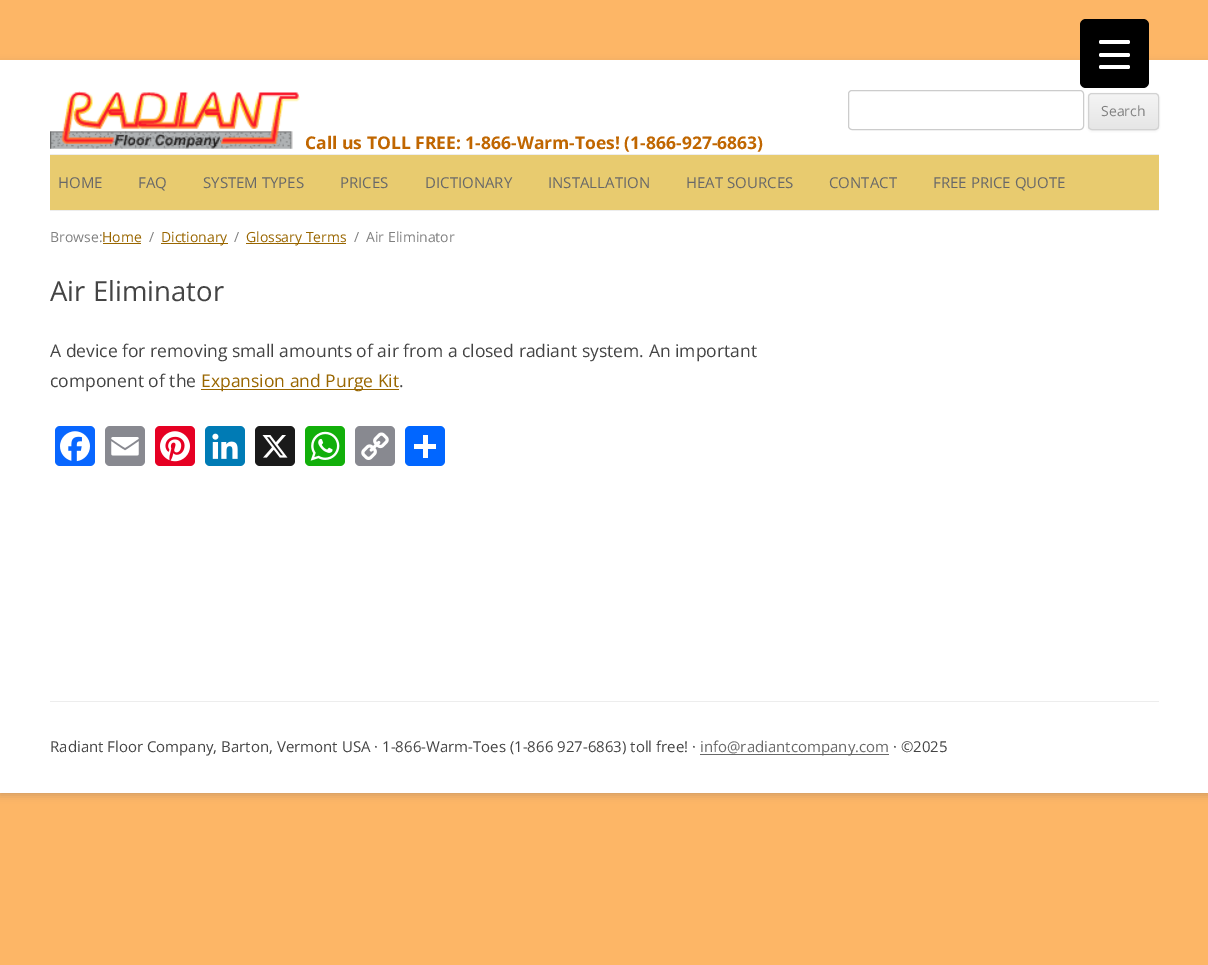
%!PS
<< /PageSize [1208 965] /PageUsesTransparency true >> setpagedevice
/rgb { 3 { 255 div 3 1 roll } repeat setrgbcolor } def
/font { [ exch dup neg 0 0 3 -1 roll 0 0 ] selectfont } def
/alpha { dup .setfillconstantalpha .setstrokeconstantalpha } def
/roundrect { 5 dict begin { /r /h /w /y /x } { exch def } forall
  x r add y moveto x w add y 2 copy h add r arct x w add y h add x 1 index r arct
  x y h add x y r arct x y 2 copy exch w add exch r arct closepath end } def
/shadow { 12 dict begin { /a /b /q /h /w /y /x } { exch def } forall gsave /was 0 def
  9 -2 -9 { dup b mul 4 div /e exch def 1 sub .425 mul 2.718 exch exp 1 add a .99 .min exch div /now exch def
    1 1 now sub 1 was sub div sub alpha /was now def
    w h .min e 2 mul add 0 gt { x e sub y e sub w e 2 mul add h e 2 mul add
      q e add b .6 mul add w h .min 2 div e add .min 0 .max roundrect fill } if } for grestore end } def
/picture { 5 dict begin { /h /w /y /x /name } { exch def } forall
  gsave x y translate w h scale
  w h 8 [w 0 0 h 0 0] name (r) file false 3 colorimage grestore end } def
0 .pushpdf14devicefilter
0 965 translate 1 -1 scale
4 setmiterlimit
253 182 102 rgb
0 0 1208 965 rectfill
100 100 100 rgb
0 63 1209 732 0 4 0.3 shadow
255 255 255 rgb
0 60 1208 733 rectfill
0 0 0 rgb
1080 19 69 69 6 roundrect fill
255 255 255 rgb
1099 53 31 4 2 roundrect fill
1099 40 31 4 2 roundrect fill
1099 65 31 4 2 roundrect fill
(img/1.rgb) 50 91 250 58 picture
204 204 204 rgb
848.5 90.5 235 39 3.5 roundrect stroke
64 64 64 rgb
1088 94 71 37 4 1 0.1 shadow
gsave
1088 93 71 37 4 roundrect clip newpath
gsave 1088 94 moveto 1159 94 lineto 1159 129 lineto 1088 129 lineto closepath clip newpath
<< /ShadingType 2 /ColorSpace /DeviceRGB /Coords [1123 94 1123 129] /Extend [true true] /Function << /FunctionType 2 /Domain [0 1] /C0 [0.957 0.957 0.957] /C1 [0.902 0.902 0.902] /N 1 >> >> shfill grestore
grestore
210 210 210 rgb
1088.5 93.5 70 36 3.5 roundrect stroke
[
  [50 155 1109 55 232 203 111]
  [50 154 1109 1 237 237 237]
  [50 210 1109 1 237 237 237]
  [103 243 38 1 153 102 0]
  [161 243 67 1 153 102 0]
  [246 243 100 1 153 102 0]
  [201 389 198 1 153 102 0]
] { aload pop rgb rectfill } forall
8 102 255 rgb
55 426 40 40 5 roundrect fill
(img/2.rgb) 60 431 30 31 picture
136 137 144 rgb
105 426 40 40 5 roundrect fill
(img/3.rgb) 111 437 28 19 picture
230 0 35 rgb
155 426 40 40 5 roundrect fill
(img/4.rgb) 160 431 30 31 picture
0 123 181 rgb
205 426 40 40 5 roundrect fill
(img/5.rgb) 212 433 26 26 picture
26 26 26 rgb
255 426 40 40 5 roundrect fill
(img/6.rgb) 262 435 26 23 picture
18 175 10 rgb
305 426 40 40 5 roundrect fill
(img/7.rgb) 310 431 30 30 picture
136 137 144 rgb
355 426 40 40 5 roundrect fill
(img/8.rgb) 361 432 28 28 picture
1 102 255 rgb
405 426 40 40 5 roundrect fill
[
  [423 435 5 23 255 255 255]
  [414 444 22 5 255 255 255]
  [50 701 1109 1 237 237 237]
  [700 754 189 1 104 104 104]
] { aload pop rgb rectfill } forall
/OpenSans-Regular 14 font
128 128 128 rgb
1101 116 moveto (Search) show
/OpenSans-Bold 17.5 font
192 102 0 rgb
305 149 moveto (Call us TOLL FREE: 1-866-Warm-Toes! \(1-866-927-6863\)) show
/OpenSans-Regular 15 font
104 104 104 rgb
[
  [(HOME) 58 188]
  [(FAQ) 138 188]
  [(SYSTEM TYPES) 203 188]
  [(PRICES) 340 188]
  [(DICTIONARY) 425 188]
  [(INSTALLATION) 548 188]
  [(HEAT SOURCES) 686 188]
  [(CONTACT) 829 188]
  [(FREE PRICE QUOTE) 933 188]
] { aload pop moveto show } forall
/OpenSans-Regular 14 font
128 128 128 rgb
50 242 moveto (Browse:) show
153 102 0 rgb
102 242 moveto (Home) show
128 128 128 rgb
149 242 moveto (/) show
153 102 0 rgb
161 242 moveto (Dictionary) show
128 128 128 rgb
234 242 moveto (/) show
153 102 0 rgb
246 242 moveto (Glossary Terms) show
128 128 128 rgb
354 242 moveto (/) show
366 242 moveto (Air Eliminator) show
/OpenSans-Regular 27.5 font
68 68 68 rgb
50 301 moveto (Air Eliminator) show
/OpenSans-Regular 17.5 font
50 357 moveto (A device for removing small amounts of air from a closed radiant system. An important) show
50 387 moveto (component of the) show
153 102 0 rgb
201 387 moveto (Expansion and Purge Kit) show
68 68 68 rgb
399 387 moveto (.) show
/OpenSans-Regular 15 font
50 752 moveto (Radiant Floor Company, Barton, Vermont USA · 1-866-Warm-Toes \(1-866 927-6863\) toll free! ·) show
104 104 104 rgb
700 752 moveto (info@radiantcompany.com) show
68 68 68 rgb
893 752 moveto (· ©2025) show
.poppdf14devicefilter showpage
